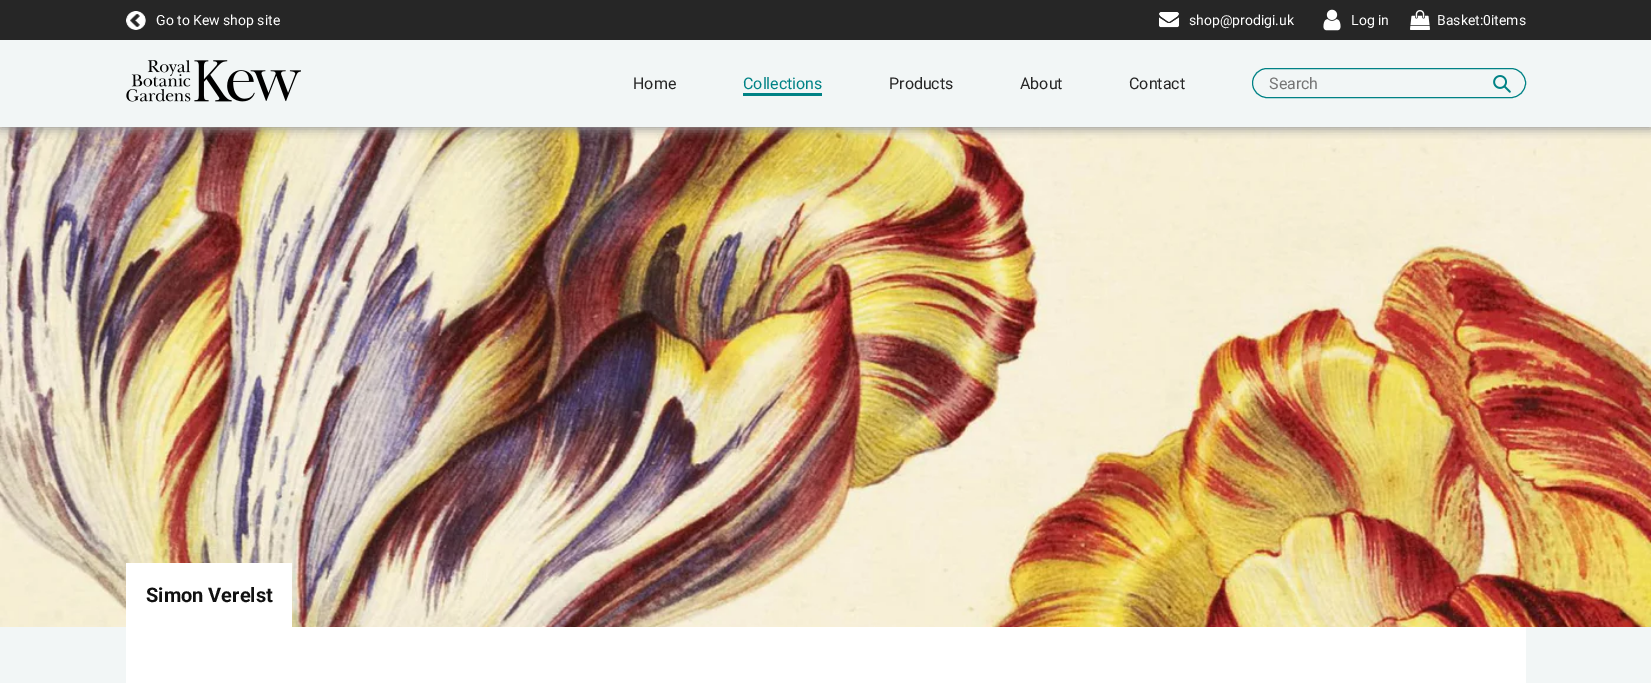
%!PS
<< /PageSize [1651 683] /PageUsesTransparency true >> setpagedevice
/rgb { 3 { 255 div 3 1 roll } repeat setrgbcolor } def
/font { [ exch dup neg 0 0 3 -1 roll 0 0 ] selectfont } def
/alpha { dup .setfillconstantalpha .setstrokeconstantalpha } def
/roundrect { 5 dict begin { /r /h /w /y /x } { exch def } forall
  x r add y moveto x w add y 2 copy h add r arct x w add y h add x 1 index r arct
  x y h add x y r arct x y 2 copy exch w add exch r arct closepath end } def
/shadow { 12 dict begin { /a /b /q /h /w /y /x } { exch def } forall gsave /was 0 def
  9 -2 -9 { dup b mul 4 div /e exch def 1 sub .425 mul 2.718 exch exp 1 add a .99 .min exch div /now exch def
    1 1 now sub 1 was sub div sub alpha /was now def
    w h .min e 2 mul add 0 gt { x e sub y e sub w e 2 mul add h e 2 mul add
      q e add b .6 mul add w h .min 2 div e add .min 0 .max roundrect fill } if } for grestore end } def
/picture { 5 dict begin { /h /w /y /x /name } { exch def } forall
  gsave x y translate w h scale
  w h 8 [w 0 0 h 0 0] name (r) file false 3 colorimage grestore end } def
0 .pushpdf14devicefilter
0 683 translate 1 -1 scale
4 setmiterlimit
242 246 246 rgb
0 0 1651 683 rectfill
(img/7.rgb) 0 127 1651 500 picture
gsave
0 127 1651 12 rectclip
151 151 151 rgb
0 2 1651 127 0 5 1 shadow
grestore
38 38 38 rgb
0 0 1651 40 rectfill
(img/1.rgb) 126 11 20 19 picture
(img/2.rgb) 1159 12 20 16 picture
(img/3.rgb) 1323 9 18 22 picture
(img/4.rgb) 1410 10 20 20 picture
(img/5.rgb) 126 60 175 42 picture
0 130 133 rgb
743 93 79 3 rectfill
1252.5 68.5 273 29 14.5 roundrect stroke
(img/6.rgb) 1493 75 18 18 picture
255 255 255 rgb
126 627 1400 56 rectfill
126 563 166 64 rectfill
/Roboto-Regular 14 font
[
  [(Go to Kew shop site) 156 25]
  [(shop@prodigi.uk) 1189 25]
  [(Log in) 1351 25]
  [(Basket:0items) 1437 25]
] { aload pop moveto show } forall
/Roboto-Regular 16 font
38 38 38 rgb
633 89 moveto (Home) show
0 130 133 rgb
743 89 moveto (Collections) show
38 38 38 rgb
[
  [(Products) 889 89]
  [(About) 1020 89]
  [(Contact) 1129 89]
] { aload pop moveto show } forall
117 117 117 rgb
1269 89 moveto (Search) show
/Roboto-Bold 20 font
17 17 17 rgb
146 602 moveto (Simon Verelst) show
.poppdf14devicefilter showpage
